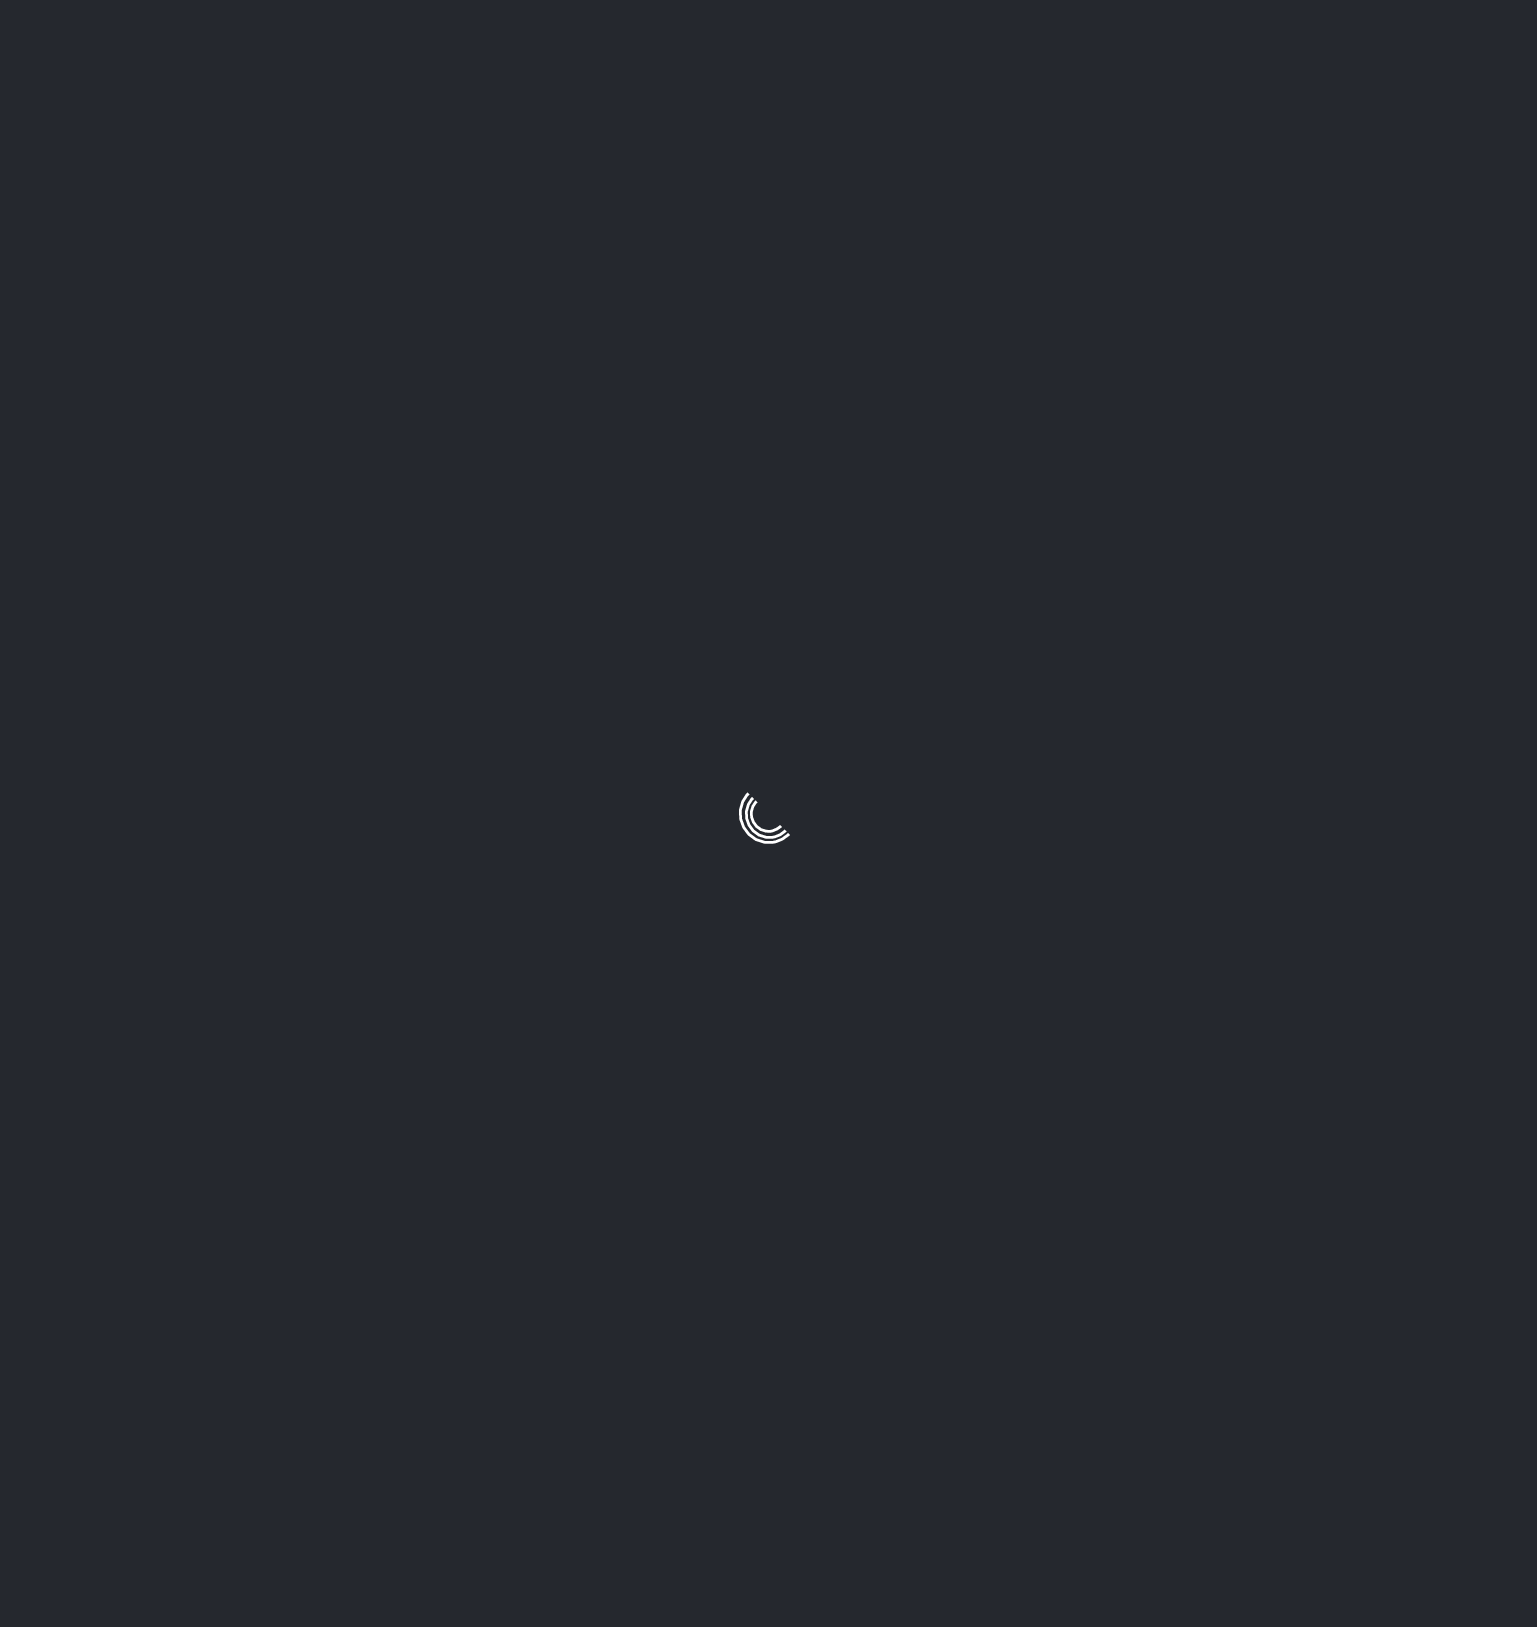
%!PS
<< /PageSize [1537 1627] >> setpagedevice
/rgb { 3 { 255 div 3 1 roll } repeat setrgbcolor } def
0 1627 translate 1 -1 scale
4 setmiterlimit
37 40 46 rgb
0 0 1537 1627 rectfill
255 255 255 rgb
2.5 setlinewidth
789 834 moveto 785 838 780 841 774.5 842 curveto 747 847.5 728.5 813.5 748.5 793.5 curveto 785.5 830.5 moveto 782.5 834 778.5 836 774 837 curveto 751.5 841.5 737 814 753 798 curveto 781 826 moveto 778.5 828.5 775.5 830 772 831 curveto 755.5 834.5 744 813.5 756.5 801.5 curveto stroke
showpage
